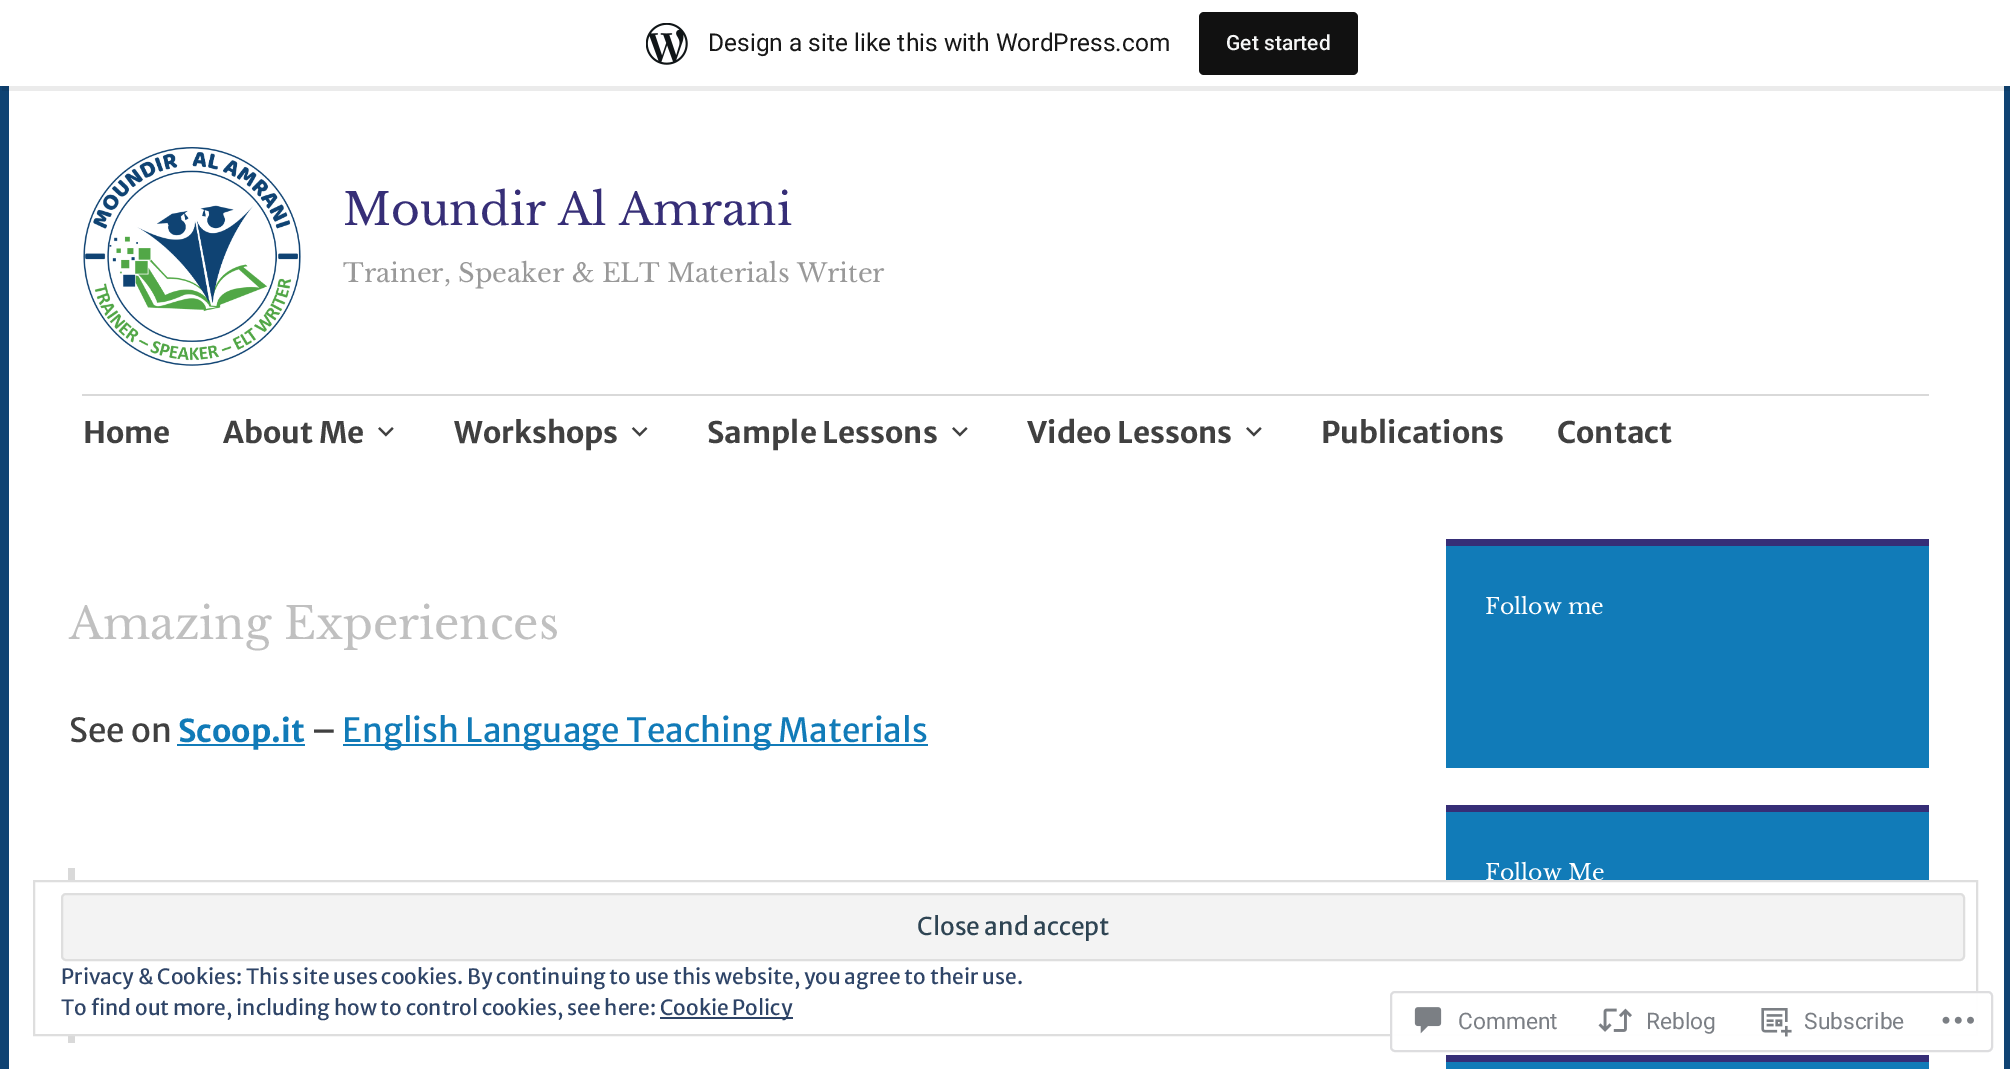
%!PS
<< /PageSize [2010 1069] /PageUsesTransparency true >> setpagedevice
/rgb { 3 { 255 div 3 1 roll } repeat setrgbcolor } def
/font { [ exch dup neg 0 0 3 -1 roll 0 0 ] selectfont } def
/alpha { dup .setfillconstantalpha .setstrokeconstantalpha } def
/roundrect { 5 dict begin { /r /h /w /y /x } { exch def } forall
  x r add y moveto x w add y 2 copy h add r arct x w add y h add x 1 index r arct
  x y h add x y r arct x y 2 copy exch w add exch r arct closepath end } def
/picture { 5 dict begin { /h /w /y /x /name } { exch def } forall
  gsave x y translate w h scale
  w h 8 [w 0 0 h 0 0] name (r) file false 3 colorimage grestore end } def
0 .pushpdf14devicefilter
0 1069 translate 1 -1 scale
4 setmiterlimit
15 67 115 rgb
0 0 2010 1069 rectfill
255 255 255 rgb
9 86 1995 983 rectfill
0.08 alpha
0 0 0 rgb
2 86 moveto 2 91 lineto 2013 91 lineto 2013 5 lineto 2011 5 lineto 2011 86 lineto closepath fill
1 alpha
255 255 255 rgb
0 0 2010 86 rectfill
(img/1.rgb) 646 23 42 42 picture
17 17 17 rgb
1199 12 159 63 5 roundrect fill
(img/2.rgb) 83 147 218 219 picture
217 217 217 rgb
82 394 1847 2 rectfill
(img/3.rgb) 378 427 16 10 picture
(img/4.rgb) 631 427 17 10 picture
(img/3.rgb) 952 427 16 10 picture
(img/3.rgb) 1246 427 16 10 picture
[
  [177 744 128 2 17 123 184]
  [343 744 585 2 17 123 184]
  [68 868 7 175 217 217 217]
  [1446 546 483 222 17 123 184]
  [1446 539 483 7 54 46 119]
  [1446 812 483 68 17 123 184]
  [1446 805 483 7 54 46 119]
  [1446 1062 483 7 17 123 184]
  [1446 1055 483 7 54 46 119]
  [68 882 7 152 255 255 255]
] { aload pop rgb rectfill } forall
/Roboto-Regular 24.5 font
23 23 23 rgb
708 51 moveto (Design a site like this with WordPress.com) show
/Roboto-Medium 21 font
246 247 247 rgb
1226 50 moveto (Get started) show
/LibreBaskerville-Regular 44.1 font
54 46 119 rgb
343 225 moveto (Moundir Al Amrani) show
/LibreBaskerville-Regular 25.75 font
153 153 153 rgb
343 282 moveto (Trainer, Speaker & ELT Materials Writer) show
/MerriweatherSans-Bold 29.75 font
64 64 64 rgb
[
  [(Home) 83 443]
  [(About Me) 223 443]
  [(Workshops) 454 443]
  [(Sample Lessons) 707 443]
  [(Video Lessons) 1027 443]
  [(Publications) 1321 443]
  [(Contact) 1557 443]
] { aload pop moveto show } forall
/LibreBaskerville-Regular 44.1 font
192 192 192 rgb
69 639 moveto (Amazing Experiences) show
/MerriweatherSans-Regular 33.25 font
64 64 64 rgb
69 742 moveto (See on) show
/MerriweatherSans-Bold 31.5 font
17 123 184 rgb
178 742 moveto (Scoop.it) show
/MerriweatherSans-Regular 33.25 font
64 64 64 rgb
311 742 moveto (–) show
17 123 184 rgb
342 742 moveto (English Language Teaching Materials) show
/LibreBaskerville-Regular 22 font
255 255 255 rgb
1485 614 moveto (Follow me) show
1485 880 moveto (Follow Me) show
222 222 222 rgb
2 setlinewidth
34 881 1943 154 rectstroke
243 243 243 rgb
62 894 1902 66 4 roundrect gsave fill grestore
222 222 222 rgb
stroke
/MerriweatherSans-Regular 24.5 font
46 68 83 rgb
917 935 moveto (Close and accept) show
/MerriweatherSans-Regular 21 font
46 68 103 rgb
61 984 moveto (Privacy & Cookies: This site uses cookies. By continuing to use this website, you agree to their use.) show
61 1015 moveto (To find out more, including how to control cookies, see here:) show
660 1017 133 2 rectfill
660 1015 moveto (Cookie Policy) show
0.98 alpha
255 255 255 rgb
1391 992 601 59 4 roundrect fill
1 alpha
221 221 223 rgb
1391 992 601 59 4 roundrect stroke
(img/5.rgb) 1414 1007 28 27 picture
/Roboto-Regular 22.75 font
123 127 133 rgb
1458 1029 moveto (Comment) show
(img/6.rgb) 1598 1008 34 24 picture
1646 1029 moveto (Reblog) show
(img/7.rgb) 1761 1008 31 29 picture
1804 1029 moveto (Subscribe) show
(img/8.rgb) 1942 1016 32 8 picture
.poppdf14devicefilter showpage
